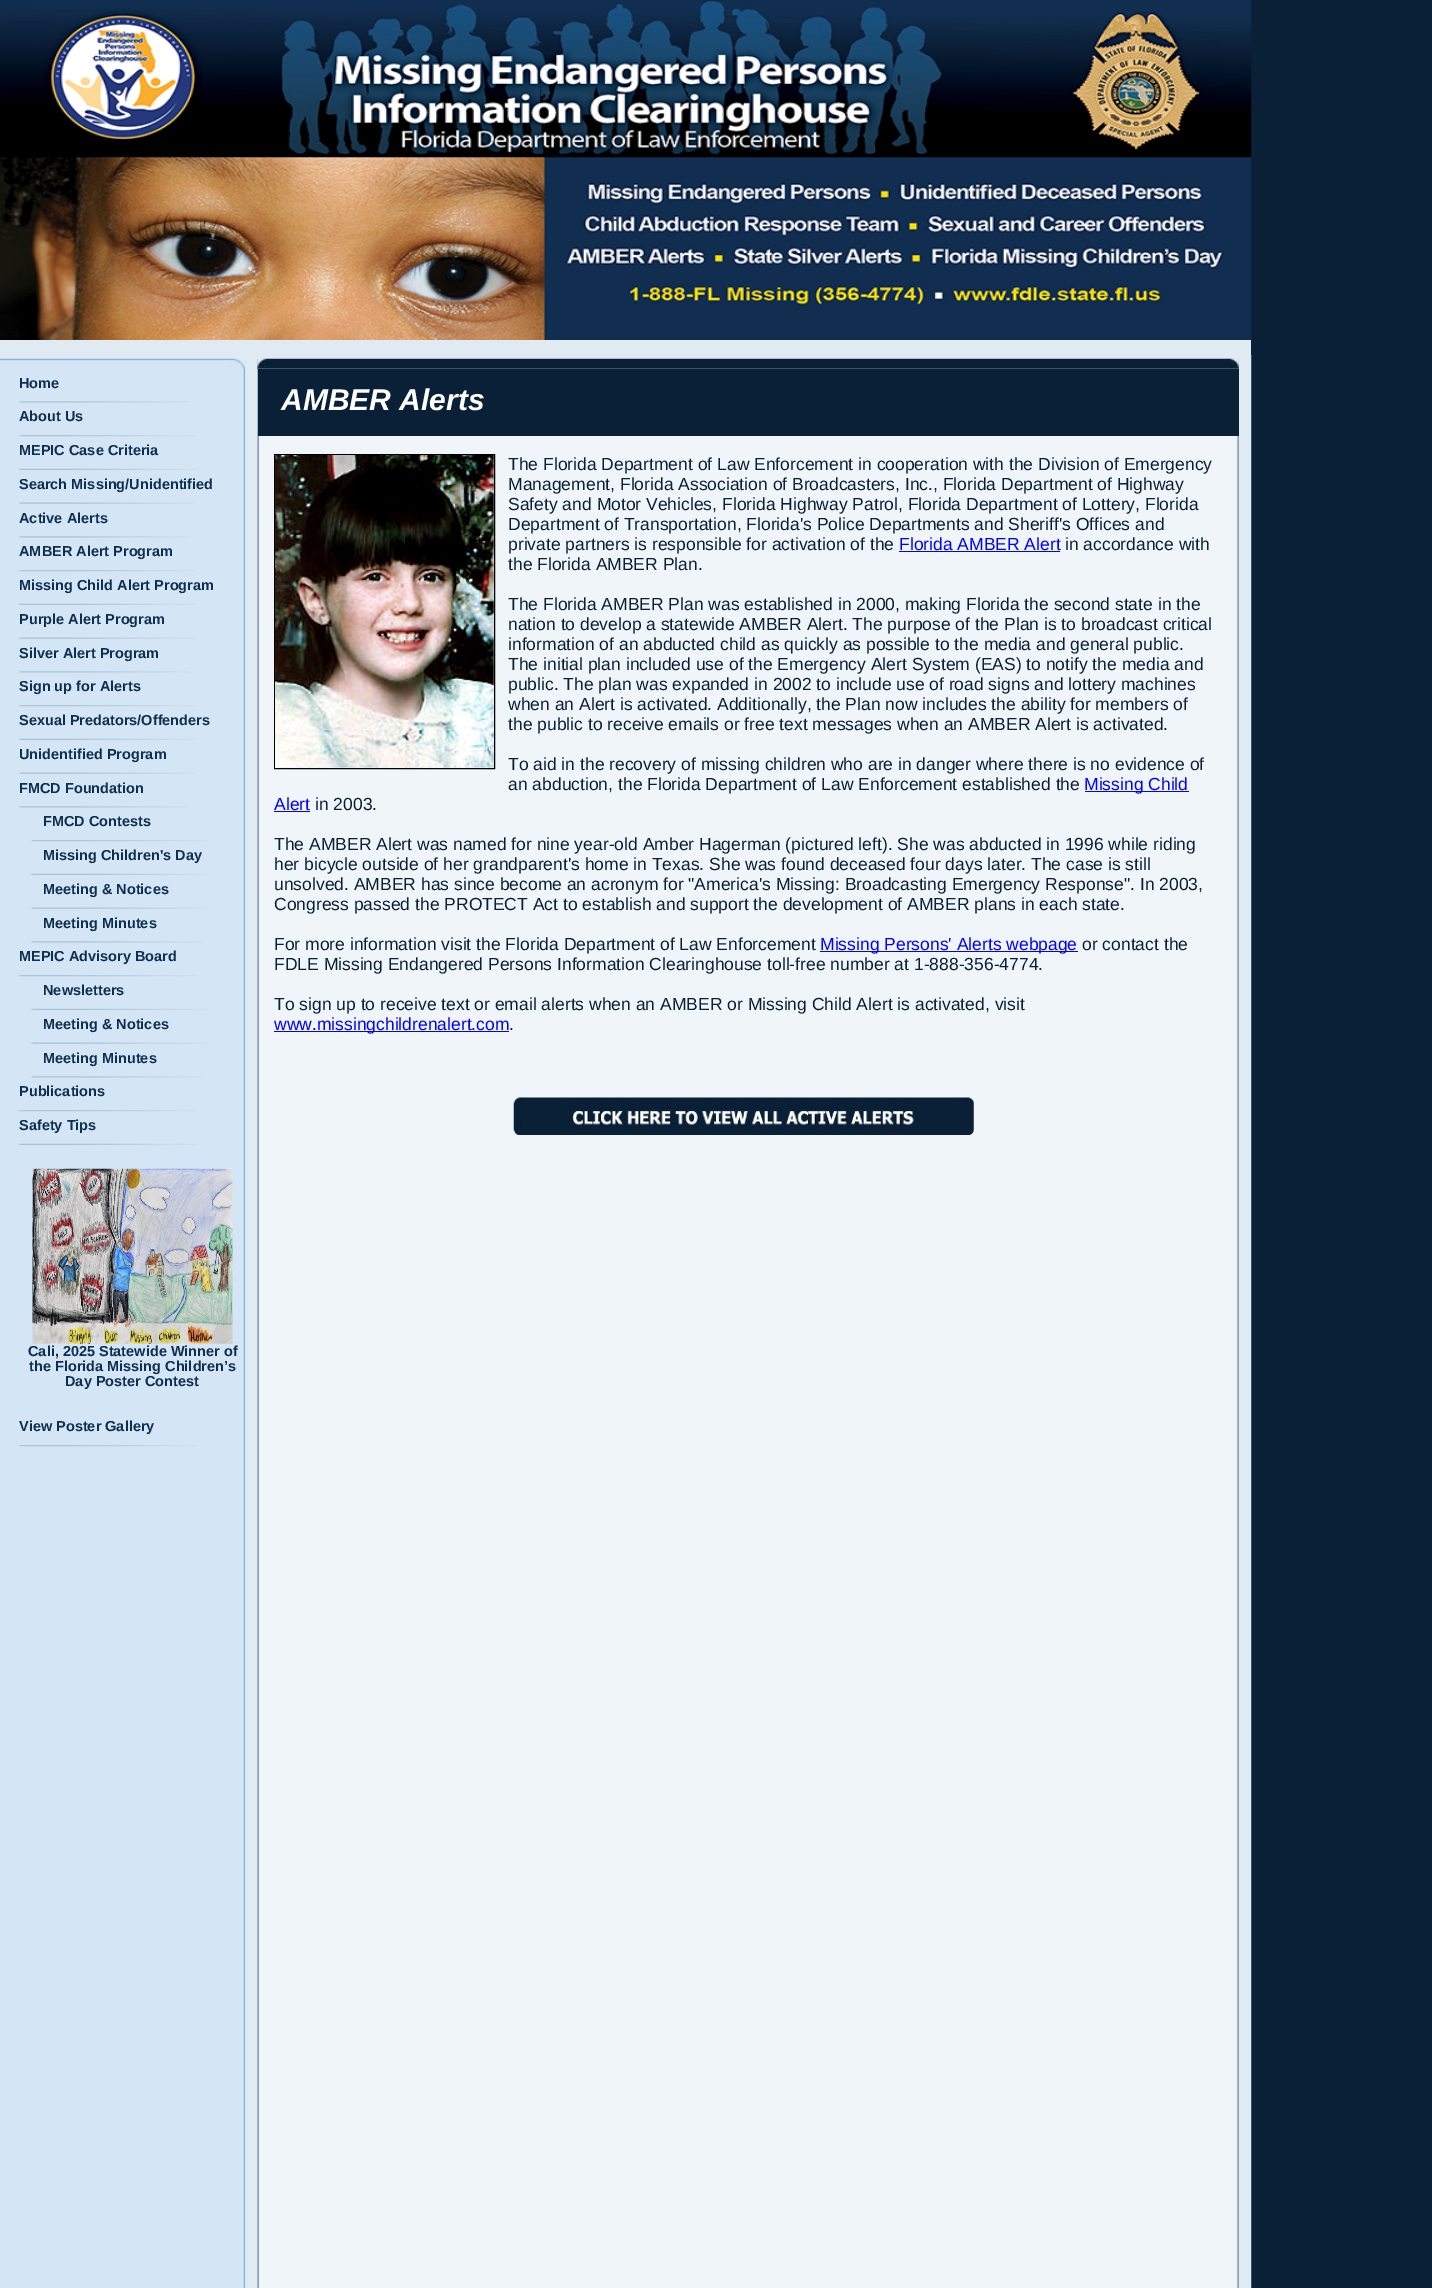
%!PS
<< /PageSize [1432 2288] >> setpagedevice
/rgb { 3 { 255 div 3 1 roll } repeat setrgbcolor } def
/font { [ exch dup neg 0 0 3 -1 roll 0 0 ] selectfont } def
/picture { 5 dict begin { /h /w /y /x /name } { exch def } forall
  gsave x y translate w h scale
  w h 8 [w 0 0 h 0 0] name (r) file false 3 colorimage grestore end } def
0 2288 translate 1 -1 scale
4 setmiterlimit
10 32 55 rgb
0 0 1432 2288 rectfill
(img/1.rgb) 0 0 1252 340 picture
(img/2.rgb) 0 355 1252 1933 picture
223 234 243 rgb
0 340 1251 19 rectfill
(img/3.rgb) 0 358 245 11 picture
(img/4.rgb) 19 401 171 2 picture
(img/5.rgb) 18 435 178 2 picture
(img/6.rgb) 18 468 179 2 picture
(img/7.rgb) 19 502 175 2 picture
(img/4.rgb) 19 536 171 2 picture
(img/5.rgb) 18 570 178 2 picture
(img/6.rgb) 18 603 179 2 picture
(img/7.rgb) 19 637 175 2 picture
(img/4.rgb) 19 671 171 2 picture
(img/5.rgb) 18 705 178 2 picture
(img/6.rgb) 18 738 179 2 picture
(img/7.rgb) 19 772 175 2 picture
(img/4.rgb) 19 806 171 2 picture
(img/8.rgb) 31 840 178 2 picture
(img/9.rgb) 31 873 178 2 picture
(img/10.rgb) 31 907 176 2 picture
(img/11.rgb) 31 941 171 2 picture
(img/5.rgb) 18 975 178 2 picture
(img/9.rgb) 31 1008 178 2 picture
(img/10.rgb) 31 1042 176 2 picture
(img/11.rgb) 31 1076 171 2 picture
(img/5.rgb) 18 1110 178 2 picture
(img/6.rgb) 18 1143 179 2 picture
(img/12.rgb) 32 1168 201 176 picture
(img/5.rgb) 18 1445 178 2 picture
(img/13.rgb) 257 358 982 11 picture
10 32 55 rgb
258 369 981 67 rectfill
0 0 0 rgb
274.5 454.5 220 314 rectstroke
(img/14.rgb) 275 455 219 313 picture
[
  [899 551 161 1 0 0 255]
  [1085 791 104 1 0 0 255]
  [274 811 36 1 0 0 255]
  [820 951 258 1 0 0 255]
  [274 1031 235 1 0 0 255]
] { aload pop rgb rectfill } forall
(img/15.rgb) 513 1097 461 38 picture
/LiberationSans-Bold 14.5 font
14 47 80 rgb
[
  [(Home) 19 388]
  [(About Us) 19 421]
  [(MEPIC Case Criteria) 19 455]
  [(Search Missing/Unidentified) 19 489]
  [(Active Alerts) 19 523]
  [(AMBER Alert Program) 19 556]
  [(Missing Child Alert Program) 19 590]
  [(Purple Alert Program) 19 624]
  [(Silver Alert Program) 19 658]
  [(Sign up for Alerts) 19 691]
  [(Sexual Predators/Offenders) 19 725]
  [(Unidentified Program) 19 759]
  [(FMCD Foundation) 19 793]
  [(FMCD Contests) 43 826]
  [(Missing Children's Day) 43 860]
  [(Meeting & Notices) 43 894]
  [(Meeting Minutes) 43 928]
  [(MEPIC Advisory Board) 19 961]
  [(Newsletters) 43 995]
  [(Meeting & Notices) 43 1029]
  [(Meeting Minutes) 43 1063]
  [(Publications) 19 1096]
  [(Safety Tips) 19 1130]
  [(Cali, 2025 Statewide Winner of) 28 1356]
  [(the Florida Missing Children’s) 29 1371]
  [(Day Poster Contest) 65 1386]
  [(View Poster Gallery) 19 1431]
] { aload pop moveto show } forall
/LiberationSans-BoldItalic 30 font
255 255 255 rgb
281 410 moveto (AMBER Alerts) show
/LiberationSans-Regular 17.5 font
10 32 55 rgb
[
  [(The Florida Department of Law Enforcement in cooperation with the Division of Emergency) 508 470]
  [(Management, Florida Association of Broadcasters, Inc., Florida Department of Highway) 508 490]
  [(Safety and Motor Vehicles, Florida Highway Patrol, Florida Department of Lottery, Florida) 508 510]
  [(Department of Transportation, Florida's Police Departments and Sheriff's Offices and) 508 530]
  [(private partners is responsible for activation of the) 508 550]
] { aload pop moveto show } forall
0 0 255 rgb
899 550 moveto (Florida AMBER Alert) show
10 32 55 rgb
[
  [(in accordance with) 1065 550]
  [(the Florida AMBER Plan.) 508 570]
  [(The Florida AMBER Plan was established in 2000, making Florida the second state in the) 508 610]
  [(nation to develop a statewide AMBER Alert. The purpose of the Plan is to broadcast critical) 508 630]
  [(information of an abducted child as quickly as possible to the media and general public.) 508 650]
  [(The initial plan included use of the Emergency Alert System \(EAS\) to notify the media and) 508 670]
  [(public. The plan was expanded in 2002 to include use of road signs and lottery machines) 508 690]
  [(when an Alert is activated. Additionally, the Plan now includes the ability for members of) 508 710]
  [(the public to receive emails or free text messages when an AMBER Alert is activated.) 508 730]
  [(To aid in the recovery of missing children who are in danger where there is no evidence of) 508 770]
  [(an abduction, the Florida Department of Law Enforcement established the) 508 790]
] { aload pop moveto show } forall
0 0 255 rgb
1084 790 moveto (Missing Child) show
274 810 moveto (Alert) show
10 32 55 rgb
[
  [(in 2003.) 315 810]
  [(The AMBER Alert was named for nine year-old Amber Hagerman \(pictured left\). She was abducted in 1996 while riding) 274 850]
  [(her bicycle outside of her grandparent's home in Texas. She was found deceased four days later. The case is still) 274 870]
  [(unsolved. AMBER has since become an acronym for "America's Missing: Broadcasting Emergency Response". In 2003,) 274 890]
  [(Congress passed the PROTECT Act to establish and support the development of AMBER plans in each state.) 274 910]
  [(For more information visit the Florida Department of Law Enforcement) 274 950]
] { aload pop moveto show } forall
0 0 255 rgb
820 950 moveto (Missing Persons' Alerts webpage) show
10 32 55 rgb
[
  [(or contact the) 1082 950]
  [(FDLE Missing Endangered Persons Information Clearinghouse toll-free number at 1-888-356-4774.) 274 970]
  [(To sign up to receive text or email alerts when an AMBER or Missing Child Alert is activated, visit) 274 1010]
] { aload pop moveto show } forall
0 0 255 rgb
274 1030 moveto (www.missingchildrenalert.com) show
10 32 55 rgb
509 1030 moveto (.) show
showpage
